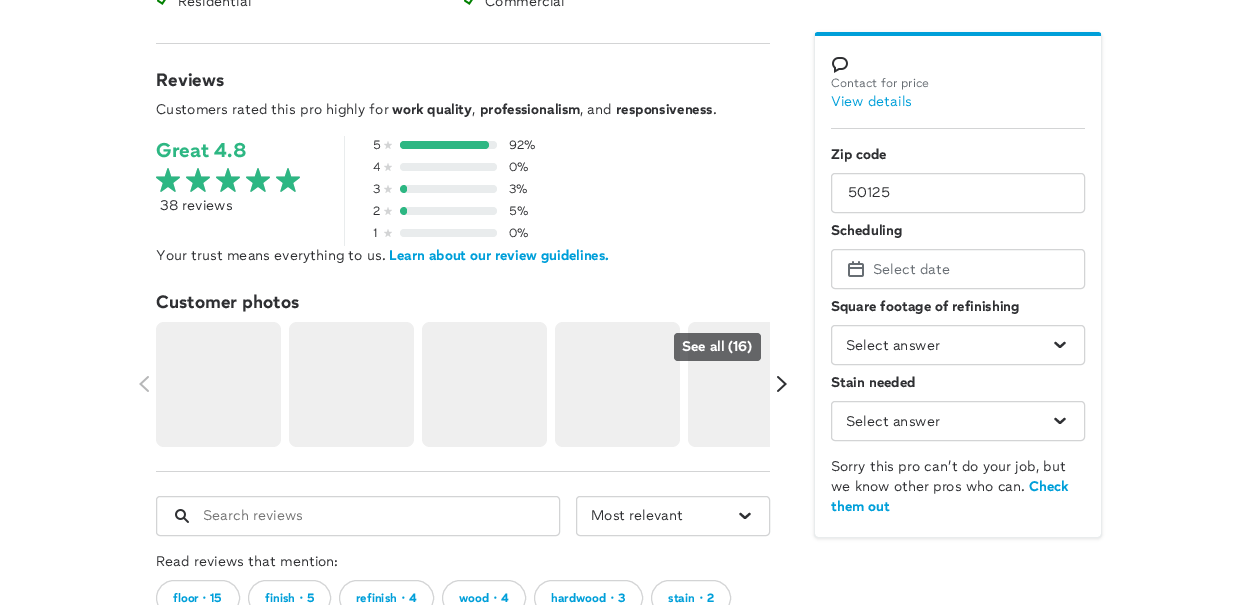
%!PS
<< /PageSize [1257 605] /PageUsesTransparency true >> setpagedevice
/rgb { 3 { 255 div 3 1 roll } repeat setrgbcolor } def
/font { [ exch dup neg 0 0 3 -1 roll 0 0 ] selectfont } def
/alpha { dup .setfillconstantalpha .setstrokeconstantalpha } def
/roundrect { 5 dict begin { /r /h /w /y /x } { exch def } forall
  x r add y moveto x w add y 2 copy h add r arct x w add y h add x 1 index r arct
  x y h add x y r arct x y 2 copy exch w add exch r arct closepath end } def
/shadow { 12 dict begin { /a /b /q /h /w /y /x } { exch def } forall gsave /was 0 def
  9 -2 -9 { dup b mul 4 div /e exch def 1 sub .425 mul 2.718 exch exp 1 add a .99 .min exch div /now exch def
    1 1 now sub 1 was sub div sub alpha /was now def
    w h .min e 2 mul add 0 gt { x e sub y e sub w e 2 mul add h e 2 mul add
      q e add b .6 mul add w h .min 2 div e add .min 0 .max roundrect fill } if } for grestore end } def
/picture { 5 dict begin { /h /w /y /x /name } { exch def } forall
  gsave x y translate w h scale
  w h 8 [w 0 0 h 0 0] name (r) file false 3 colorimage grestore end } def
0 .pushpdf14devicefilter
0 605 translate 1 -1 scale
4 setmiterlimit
255 255 255 rgb
0 0 1257 605 rectfill
(img/1.rgb) 157 0 9 5 picture
(img/1.rgb) 464 0 9 5 picture
211 212 213 rgb
156 43 614 1 rectfill
233 236 237 rgb
344 136 1 110 rectfill
(img/2.rgb) 156 168 144 24 picture
(img/3.rgb) 156 168 144 24 picture
(img/4.rgb) 384 141 8 8 picture
400 141 97 8 4 roundrect fill
45 183 131 rgb
400 141 89 8 4 roundrect fill
(img/4.rgb) 384 163 8 8 picture
233 236 237 rgb
400 163 97 8 4 roundrect fill
(img/4.rgb) 384 185 8 8 picture
400 185 97 8 4 roundrect fill
45 183 131 rgb
404 185 moveto 403.5 185 lineto 405.5 185 407 186.5 407 188.5 curveto 407 189.5 lineto 407 191.5 405.5 193 403.5 193 curveto 404 193 lineto 402 193 400 191 400 189 curveto 400 187 402 185 404 185 curveto closepath fill
(img/4.rgb) 384 207 8 8 picture
233 236 237 rgb
400 207 97 8 4 roundrect fill
45 183 131 rgb
404 207 moveto 403.5 207 lineto 405.5 207 407 208.5 407 210.5 curveto 407 211.5 lineto 407 213.5 405.5 215 403.5 215 curveto 404 215 lineto 402 215 400 213 400 211 curveto 400 209 402 207 404 207 curveto closepath fill
(img/4.rgb) 384 229 8 8 picture
233 236 237 rgb
400 229 97 8 4 roundrect fill
239 239 239 rgb
156 322 125 125 8 roundrect fill
289 322 125 125 8 roundrect fill
422 322 125 125 8 roundrect fill
555 322 125 125 8 roundrect fill
696 322 moveto 770 322 lineto 770 447 lineto 696 447 lineto 691.5 447 688 443.5 688 439 curveto 688 330 lineto 688 325.5 691.5 322 696 322 curveto closepath fill
0.72 alpha
47 48 51 rgb
674 333 87 28 4 roundrect fill
1 alpha
(img/5.rgb) 139 376 10 16 picture
(img/6.rgb) 777 376 10 16 picture
211 212 213 rgb
156 471 614 1 rectfill
156.5 496.5 403 39 3.5 roundrect stroke
(img/7.rgb) 175 509 14 14 picture
576.5 496.5 193 39 3.5 roundrect stroke
47 48 51 rgb
2.2 setlinewidth
1 setlinecap
1 setlinejoin
740.5 514 moveto 745 518 lineto 749.5 514 lineto stroke
211 212 213 rgb
1 setlinewidth
0 setlinecap
0 setlinejoin
156.5 580.5 83 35 17.5 roundrect stroke
248.5 580.5 82 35 17.5 roundrect stroke
339.5 580.5 94 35 17.5 roundrect stroke
442.5 580.5 83 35 17.5 roundrect stroke
534.5 580.5 108 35 17.5 roundrect stroke
651.5 580.5 79 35 17.5 roundrect stroke
gsave
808 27 moveto 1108 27 lineto 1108 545 lineto 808 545 lineto closepath 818 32 moveto 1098 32 lineto 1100 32 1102 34 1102 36 curveto 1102 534 lineto 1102 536 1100 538 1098 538 curveto 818 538 lineto 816 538 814 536 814 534 curveto 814 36 lineto 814 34 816 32 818 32 curveto closepath eoclip newpath
0 0 0 rgb
814 33 288 506 4 1.5 0.1 shadow
grestore
0 159 217 rgb
818 32 moveto 817 32 815 33 815 34 curveto 815 36 lineto 1101 36 lineto 1101 34 lineto 1101 33 1099 32 1098 32 curveto closepath fill
233 236 237 rgb
1102 534 moveto 1102 36 lineto 1101 34 lineto 1101 36 lineto 1101 534 lineto 1100 536 lineto 1101 537 lineto closepath fill
818 538 moveto 1098 538 lineto 1101 537 lineto 1100 536 lineto 1098 537 lineto 818 537 lineto 816 536 lineto 815 537 lineto closepath fill
814 36 moveto 814 535 lineto 815 537 lineto 816 536 lineto 815 534 lineto 815 36 lineto 815 34 lineto closepath fill
(img/8.rgb) 832 57 16 16 picture
211 212 213 rgb
831 128 254 1 rectfill
831.5 173.5 253 39 3.5 roundrect stroke
831.5 249.5 253 39 3.5 roundrect stroke
(img/9.rgb) 848 261 16 16 picture
831.5 325.5 253 39 3.5 roundrect stroke
47 48 51 rgb
2.2 setlinewidth
1 setlinecap
1 setlinejoin
1055.5 343 moveto 1060 347 lineto 1064.5 343 lineto stroke
211 212 213 rgb
1 setlinewidth
0 setlinecap
0 setlinejoin
831.5 401.5 253 39 3.5 roundrect stroke
47 48 51 rgb
2.2 setlinewidth
1 setlinecap
1 setlinejoin
1055.5 419 moveto 1060 423 lineto 1064.5 419 lineto stroke
/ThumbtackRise-Regular 14 font
178 6 moveto (Residential) show
485 6 moveto (Commercial) show
/ThumbtackRise-Bold 18 font
156 86 moveto (Reviews) show
/ThumbtackRise-Regular 14 font
156 114 moveto (Customers rated this pro highly for) show
/ThumbtackRise-Bold 14 font
392 114 moveto (work quality) show
/ThumbtackRise-Regular 14 font
472 114 moveto (,) show
/ThumbtackRise-Bold 14 font
480 114 moveto (professionalism) show
/ThumbtackRise-Regular 14 font
580 114 moveto (, and) show
/ThumbtackRise-Bold 14 font
616 114 moveto (responsiveness) show
/ThumbtackRise-Regular 14 font
713 114 moveto (.) show
/ThumbtackRise-Bold 20 font
45 183 131 rgb
156 157 moveto (Great 4.8) show
/ThumbtackRise-Regular 14 font
47 48 51 rgb
160 210 moveto (38 reviews) show
/ThumbtackRise-Regular 12 font
[
  [(5) 373 149]
  [(92%) 509 149]
  [(4) 373 171]
  [(0%) 509 171]
  [(3) 373 193]
  [(3%) 509 193]
  [(2) 373 215]
  [(5%) 509 215]
  [(1) 373 237]
  [(0%) 509 237]
] { aload pop moveto show } forall
/ThumbtackRise-Regular 14 font
156 260 moveto (Your trust means everything to us.) show
/ThumbtackRise-Bold 14 font
0 159 217 rgb
389 260 moveto (Learn about our review guidelines.) show
/ThumbtackRise-Bold 18 font
47 48 51 rgb
156 308 moveto (Customer photos) show
/ThumbtackRise-Bold 14 font
255 255 255 rgb
682 351 moveto (See all \(16\)) show
/ThumbtackRise-Regular 14 font
117 117 117 rgb
203 520 moveto (Search reviews) show
47 48 51 rgb
591 520 moveto (Most relevant) show
156 566 moveto (Read reviews that mention:) show
/ThumbtackRise-Bold 12 font
0 159 217 rgb
173 602 moveto (floor) show
/WenQuanYiZenHei-Bold 12 font
198 602 moveto (・) show
/ThumbtackRise-Bold 12 font
210 602 moveto (15) show
265 602 moveto (finish) show
/WenQuanYiZenHei-Bold 12 font
295 602 moveto (・) show
/ThumbtackRise-Bold 12 font
307 602 moveto (5) show
356 602 moveto (refinish) show
/WenQuanYiZenHei-Bold 12 font
397 602 moveto (・) show
/ThumbtackRise-Bold 12 font
409 602 moveto (4) show
459 602 moveto (wood) show
/WenQuanYiZenHei-Bold 12 font
489 602 moveto (・) show
/ThumbtackRise-Bold 12 font
501 602 moveto (4) show
551 602 moveto (hardwood) show
/WenQuanYiZenHei-Bold 12 font
606 602 moveto (・) show
/ThumbtackRise-Bold 12 font
618 602 moveto (3) show
668 602 moveto (stain) show
/WenQuanYiZenHei-Bold 12 font
695 602 moveto (・) show
/ThumbtackRise-Bold 12 font
707 602 moveto (2) show
/ThumbtackRise-Regular 12 font
103 109 115 rgb
831 87 moveto (Contact for price) show
/ThumbtackRise-Regular 14 font
0 159 217 rgb
831 106 moveto (View details) show
/ThumbtackRise-Bold 14 font
47 48 51 rgb
831 159 moveto (Zip code) show
/ThumbtackRise-Regular 14 font
848 197 moveto (50125) show
/ThumbtackRise-Bold 14 font
831 235 moveto (Scheduling) show
/ThumbtackRise-Regular 14 font
103 109 115 rgb
873 274 moveto (Select date) show
/ThumbtackRise-Bold 14 font
47 48 51 rgb
831 311 moveto (Square footage of refinishing) show
/ThumbtackRise-Regular 14 font
846 350 moveto (Select answer) show
/ThumbtackRise-Bold 14 font
831 387 moveto (Stain needed) show
/ThumbtackRise-Regular 14 font
[
  [(Select answer) 846 426]
  [(Sorry this pro can’t do your job, but) 831 471]
  [(we know other pros who can.) 831 491]
] { aload pop moveto show } forall
/ThumbtackRise-Bold 14 font
0 159 217 rgb
1029 491 moveto (Check) show
831 511 moveto (them out) show
.poppdf14devicefilter showpage
